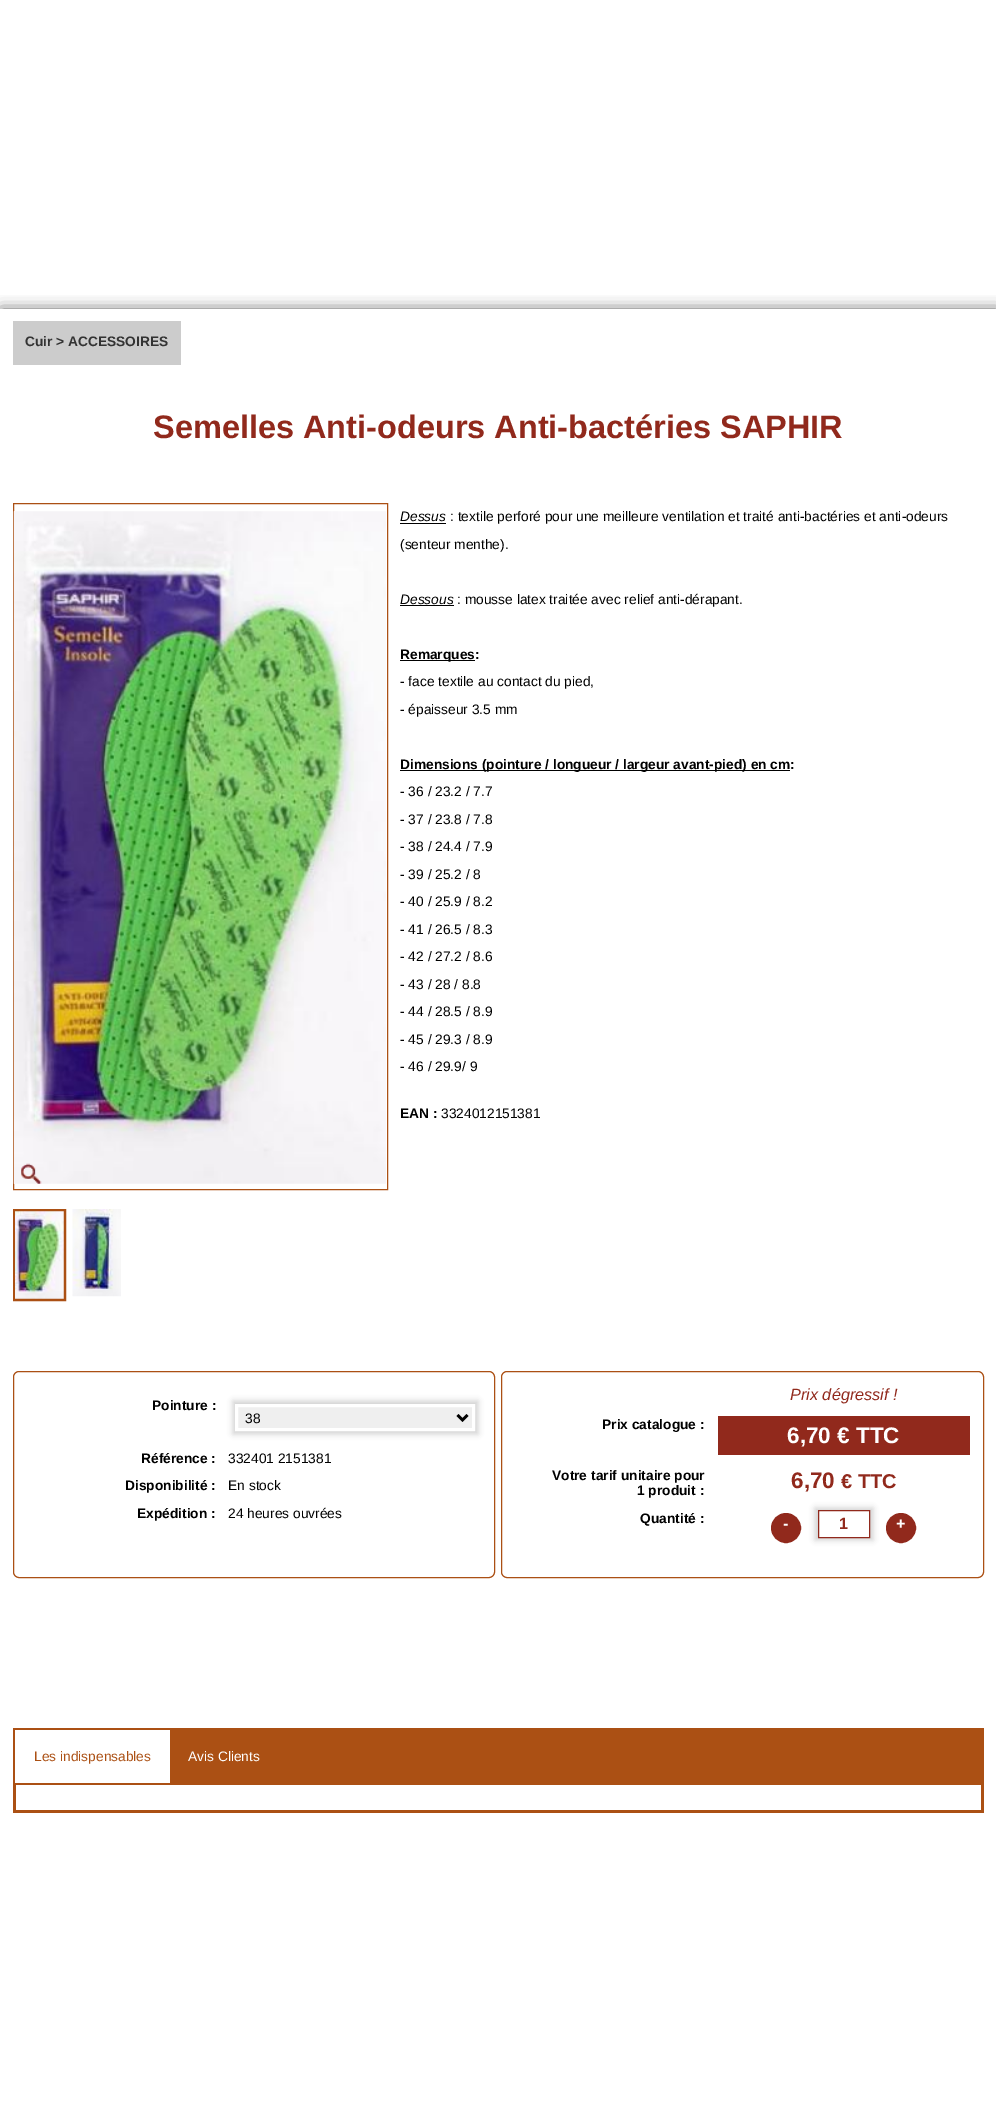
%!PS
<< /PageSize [996 2120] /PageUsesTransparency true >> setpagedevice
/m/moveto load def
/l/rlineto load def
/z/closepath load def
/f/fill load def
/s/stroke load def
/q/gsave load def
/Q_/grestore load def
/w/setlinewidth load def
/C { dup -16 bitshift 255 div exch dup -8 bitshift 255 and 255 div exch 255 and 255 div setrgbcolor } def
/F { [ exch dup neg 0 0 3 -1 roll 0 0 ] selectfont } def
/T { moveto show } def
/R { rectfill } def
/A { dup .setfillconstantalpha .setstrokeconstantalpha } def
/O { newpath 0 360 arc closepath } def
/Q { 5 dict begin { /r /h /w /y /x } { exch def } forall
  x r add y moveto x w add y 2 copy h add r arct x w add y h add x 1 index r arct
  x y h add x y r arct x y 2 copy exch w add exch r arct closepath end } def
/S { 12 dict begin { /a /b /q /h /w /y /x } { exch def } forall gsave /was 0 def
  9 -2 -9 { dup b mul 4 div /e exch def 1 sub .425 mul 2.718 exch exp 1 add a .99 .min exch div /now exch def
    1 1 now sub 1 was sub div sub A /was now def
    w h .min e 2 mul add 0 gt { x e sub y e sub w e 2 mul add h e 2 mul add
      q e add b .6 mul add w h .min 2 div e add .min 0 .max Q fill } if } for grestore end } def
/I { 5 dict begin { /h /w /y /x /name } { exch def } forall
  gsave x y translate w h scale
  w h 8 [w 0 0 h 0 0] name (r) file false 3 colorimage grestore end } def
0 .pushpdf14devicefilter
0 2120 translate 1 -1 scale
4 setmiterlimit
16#FFFFFF C
0 0 996 2120 R
q
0 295 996 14 rectclip
16#555555 C
1 310 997 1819 0 7.5 1 S
Q_
16#CCCCCC C
13 321 168 44 R
/LiberationSans-Bold 13.75 F
16#333333 C
(Cuir > ACCESSOIRES) 25 346 T
/LiberationSans-Bold 32.5 F
16#91291C C
(Semelles Anti-odeurs Anti-bactéries SAPHIR) 153 438 T
16#AB5014 C
13.5 503.5 374 686 rectstroke
(1.rgb) 13 511 373 673 I
(2.rgb) 21 1163 21 21 I
3 w
14.5 1210.5 50 89 rectstroke
(3.rgb) 15 1211 49 88 I
(4.rgb) 72 1209 49 88 I
/LiberationSans-Italic 13.75 F
16#000000 C
(Dessus) 400 521 T
400 523 46 1 R
/LiberationSans-Regular 13.75 F
(: textile perforé pour une meilleure ventilation et traité anti-bactéries et anti-odeurs) 450 521 T
(\(senteur menthe\).) 400 549 T
/LiberationSans-Italic 13.75 F
(Dessous) 400 604 T
400 605 54 1 R
/LiberationSans-Regular 13.75 F
(: mousse latex traitée avec relief anti-dérapant.) 457 604 T
400 660 75 1 R
/LiberationSans-Bold 13.75 F
(Remarques:) 400 659 T
/LiberationSans-Regular 13.75 F
(- face textile au contact du pied,) 400 686 T
(- épaisseur 3.5 mm) 400 714 T
400 770 390 1 R
/LiberationSans-Bold 13.75 F
(Dimensions \(pointure / longueur / largeur avant-pied\) en cm:) 400 769 T
/LiberationSans-Regular 13.75 F
(- 36 / 23.2 / 7.7) 400 796 T
(- 37 / 23.8 / 7.8) 400 824 T
(- 38 / 24.4 / 7.9) 400 851 T
(- 39 / 25.2 / 8) 400 879 T
(- 40 / 25.9 / 8.2) 400 906 T
(- 41 / 26.5 / 8.3) 400 934 T
(- 42 / 27.2 / 8.6) 400 961 T
(- 43 / 28 / 8.8) 400 989 T
(- 44 / 28.5 / 8.9) 400 1016 T
(- 45 / 29.3 / 8.9) 400 1044 T
(- 46 / 29.9/ 9) 400 1071 T
/LiberationSans-Bold 13.75 F
(EAN :) 400 1118 T
/LiberationSans-Regular 13.75 F
(3324012151381) 441 1118 T
16#AB5014 C
1 w
13.5 1371.5 481 206 5.5 Q s
/LiberationSans-Bold 13.75 F
16#000000 C
(Pointure :) 152 1410 T
16#CFCFCF C
233 1401 245 33 0 3 1 S
16#EFEFEF C
236.5 1405.5 m 237 0 l 0 24 l -237 0 l z q f Q_
16#FFFFFF C
3 w
s
16#000000 C
2.5 w
457.5 1415 m 5 5 l 5 -5 l s
/LiberationSans-Regular 13.75 F
(38) 245 1423 T
/LiberationSans-Bold 13.75 F
(Référence :) 141 1463 T
/LiberationSans-Regular 13.75 F
(332401 2151381) 228 1463 T
/LiberationSans-Bold 13.75 F
(Disponibilité :) 125 1490 T
/LiberationSans-Regular 13.75 F
(En stock) 228 1490 T
/LiberationSans-Bold 13.75 F
(Expédition :) 137 1518 T
/LiberationSans-Regular 13.75 F
(24 heures ouvrées) 228 1518 T
16#AB5014 C
1 w
501.5 1371.5 482 206 5.5 Q s
/LiberationSans-Italic 16.25 F
16#91291C C
(Prix dégressif !) 790 1400 T
/LiberationSans-Bold 13.75 F
16#000000 C
(Prix catalogue :) 602 1429 T
16#91291C C
718 1416 252 39 R
/LiberationSans-Bold 22.5 F
16#FFFFFF C
(6,70 € TTC) 787 1443 T
/LiberationSans-Bold 13.75 F
16#000000 C
(Votre tarif unitaire pour) 552 1480 T
(1 produit :) 637 1495 T
/LiberationSans-Bold 22.5 F
16#91291C C
(6,70) 791 1488 T
/LiberationSans-Bold 20 F
(€ TTC) 841 1488 T
/LiberationSans-Bold 13.75 F
16#000000 C
(Quantité :) 640 1523 T
16#91291C C
786 1528 13.5 O q f Q_
3 w
s
/LiberationSans-Bold 16.25 F
16#FFFFFF C
(-) 783 1529 T
16#CFCFCF C
815 1508 58 32 0 3 1 S
16#FFFFFF C
818.5 1510.5 m 51 0 l 0 27 l -51 0 l z q f Q_
16#91291C C
1 w
s
(1) 839 1529 T
901 1528 13.5 O q f Q_
3 w
s
16#FFFFFF C
(+) 896 1529 T
16#AB5014 C
13 1728 971 57 R
16#FFFFFF C
15 1730 155 53 R
/LiberationSans-Regular 13.75 F
16#AB5014 C
(Les indispensables) 34 1761 T
16#FFFFFF C
(Avis Clients) 188 1761 T
16#AB5014 C
981 1785 3 28 R
13 1810 971 3 R
13 1785 3 28 R
.poppdf14devicefilter showpage
